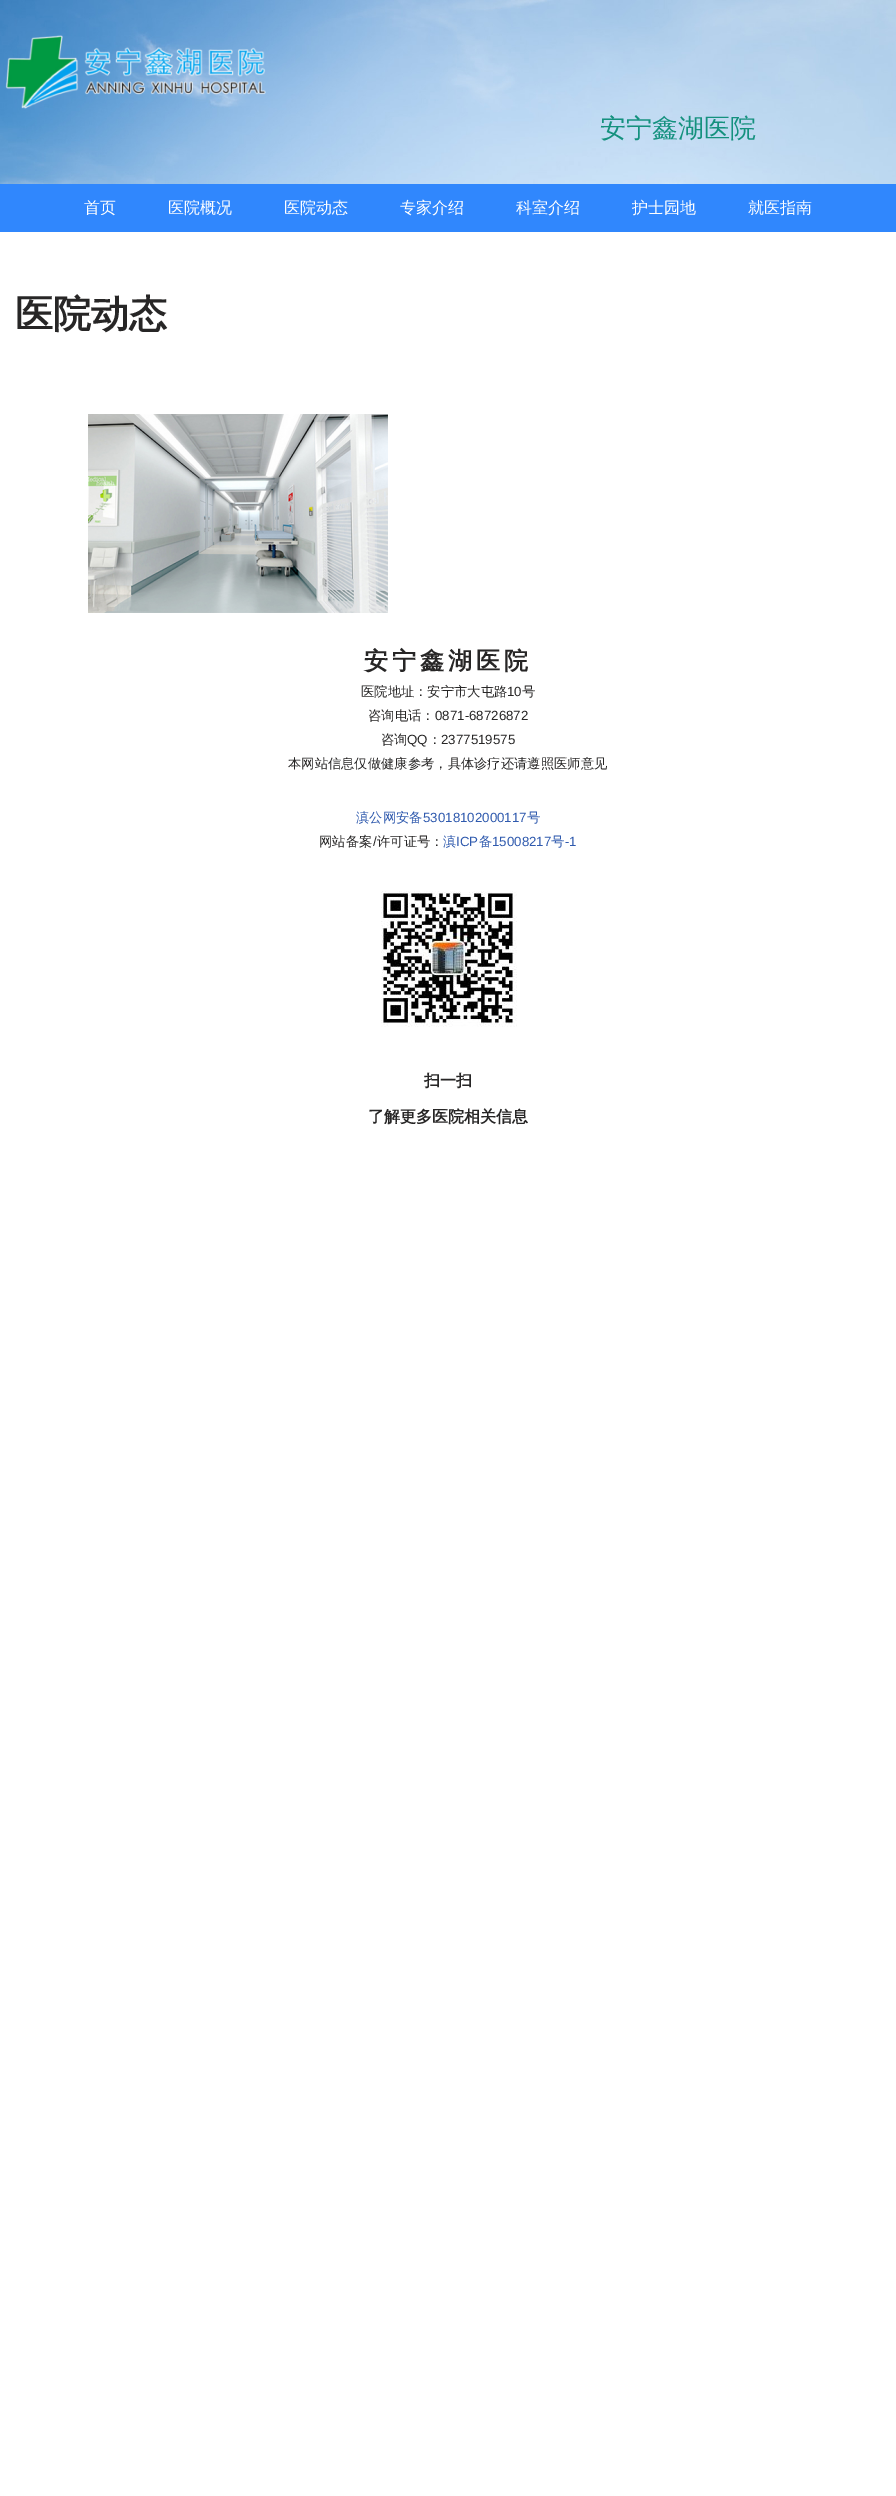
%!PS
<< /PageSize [896 2496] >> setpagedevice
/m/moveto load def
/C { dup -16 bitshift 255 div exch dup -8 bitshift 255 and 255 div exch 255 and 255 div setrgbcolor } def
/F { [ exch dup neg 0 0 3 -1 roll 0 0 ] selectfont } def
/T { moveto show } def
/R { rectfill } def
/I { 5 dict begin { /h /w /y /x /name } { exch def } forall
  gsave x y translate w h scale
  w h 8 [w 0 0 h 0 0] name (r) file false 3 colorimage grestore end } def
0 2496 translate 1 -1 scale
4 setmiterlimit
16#FFFFFF C
0 0 896 2496 R
(1.rgb) 0 0 896 184 I
(2.rgb) 5 35 261 74 I
/WenQuanYiZenHei-Medium 26 F
16#14917E C
(安宁鑫湖医院) 600 137 T
16#3087FD C
0 184 896 48 R
/WenQuanYiZenHei-Medium 16 F
16#FFFFFF C
(首页) 84 213 T
(医院概况) 168 213 T
(医院动态) 284 213 T
(专家介绍) 400 213 T
(科室介绍) 516 213 T
(护士园地) 632 213 T
(就医指南) 748 213 T
/WenQuanYiZenHei-Bold 38 F
16#272626 C
(医院动态) 15 327 T
(3.rgb) 88 414 300 199 I
/WenQuanYiZenHei-Bold 24 F
364 669 m 4 0 (安宁鑫湖医院) ashow
/WenQuanYiZenHei-Medium 13.3 F
(医院地址：安宁市大屯路) 361 696 T
/LiberationSans-Regular 13.3 F
(10) 507 696 T
/WenQuanYiZenHei-Medium 13.3 F
(号) 522 696 T
(咨询电话：) 368 720 T
/LiberationSans-Regular 13.3 F
(0871-68726872) 435 720 T
/WenQuanYiZenHei-Medium 13.3 F
(咨询) 381 744 T
/LiberationSans-Regular 13.3 F
(QQ) 407 744 T
/WenQuanYiZenHei-Medium 13.3 F
(：) 428 744 T
/LiberationSans-Regular 13.3 F
(2377519575) 441 744 T
/WenQuanYiZenHei-Medium 13.3 F
(本网站信息仅做健康参考，具体诊疗还请遵照医师意见) 288 768 T
16#2F5AAE C
(滇公网安备) 356 822 T
/LiberationSans-Regular 13.3 F
(53018102000117) 423 822 T
/WenQuanYiZenHei-Medium 13.3 F
(号) 527 822 T
16#272626 C
(网站备案) 319 846 T
/LiberationSans-Regular 13.3 F
(/) 373 846 T
/WenQuanYiZenHei-Medium 13.3 F
(许可证号：) 377 846 T
16#2F5AAE C
(滇) 443 846 T
/LiberationSans-Regular 13.3 F
(ICP) 456 846 T
/WenQuanYiZenHei-Medium 13.3 F
(备) 479 846 T
/LiberationSans-Regular 13.3 F
(15008217) 492 846 T
/WenQuanYiZenHei-Medium 13.3 F
(号) 551 846 T
/LiberationSans-Regular 13.3 F
(-1) 565 846 T
(4.rgb) 381 891 136 136 I
/WenQuanYiZenHei-Bold 16 F
16#272626 C
(扫一扫) 424 1086 T
(了解更多医院相关信息) 368 1122 T
showpage
